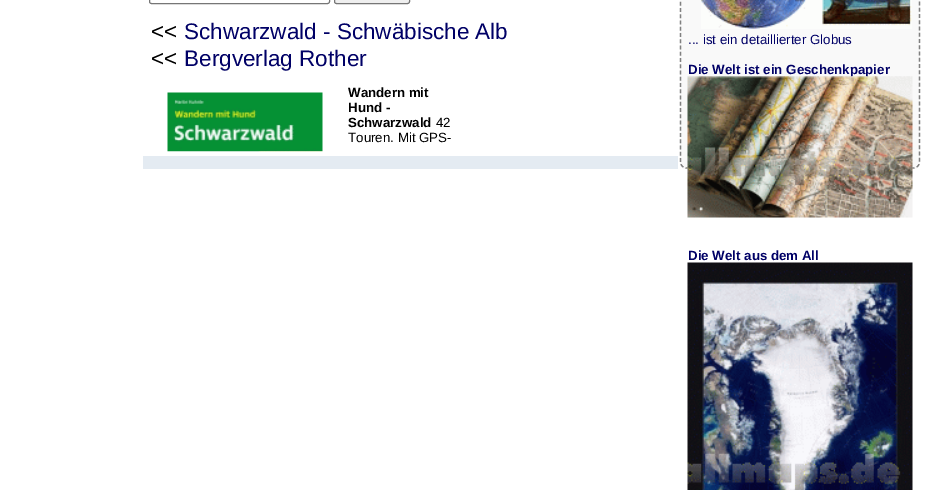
%!PS
<< /PageSize [929 490] >> setpagedevice
/m/moveto load def
/l/rlineto load def
/c/rcurveto load def
/z/closepath load def
/f/fill load def
/s/stroke load def
/q/gsave load def
/Q_/grestore load def
/w/setlinewidth load def
/C { dup -16 bitshift 255 div exch dup -8 bitshift 255 and 255 div exch 255 and 255 div setrgbcolor } def
/F { [ exch dup neg 0 0 3 -1 roll 0 0 ] selectfont } def
/T { moveto show } def
/R { rectfill } def
/Q { 5 dict begin { /r /h /w /y /x } { exch def } forall
  x r add y moveto x w add y 2 copy h add r arct x w add y h add x 1 index r arct
  x y h add x y r arct x y 2 copy exch w add exch r arct closepath end } def
/I { 5 dict begin { /h /w /y /x /name } { exch def } forall
  gsave x y translate w h scale
  w h 8 [w 0 0 h 0 0] name (r) file false 3 colorimage grestore end } def
0 490 translate 1 -1 scale
4 setmiterlimit
16#FFFFFF C
0 0 929 490 R
16#767676 C
149.5 -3.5 180 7 2 Q s
16#EFEFEF C
334.5 -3.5 75 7 2 Q q f Q_
16#767676 C
s
/LiberationSans-Regular 22.5 F
16#000000 C
(<<) 151 39 T
16#000066 C
(Schwarzwald - Schwäbische Alb) 184 39 T
16#000000 C
(<<) 151 66 T
16#000066 C
(Bergverlag Rother) 184 66 T
(1.rgb) 167 92 156 60 I
/LiberationSans-Bold 13.3 F
16#000000 C
(Wandern mit) 348 97 T
(Hund -) 348 112 T
(Schwarzwald) 348 127 T
/LiberationSans-Regular 13.3 F
(42) 436 127 T
(Touren. Mit GPS-) 348 142 T
16#F9F9F9 C
680 -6 m 234 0 l 3.5 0 6 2.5 6 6 c 0 163 l 0 3.5 -2.5 6 -6 6 c -228 0 l -3.5 0 -6 -2.5 -6 -6 c z f
16#808080 C
1.2 w
[3.75 2.5] 0 setdash
680.5 -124.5 m 233 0 l 3 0 6 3 6 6 c 0 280.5 l 0 3.5 -3 6 -6 6 c -227 0 l -3 0 -6 -2.5 -6 -6 c z s
(2.rgb) 701 0 211 29 I
16#000066 C
(... ist ein detaillierter Globus) 688 44 T
/LiberationSans-Bold 13.3 F
(Die Welt ist ein Geschenkpapier) 688 74 T
(3.rgb) 687 76 226 142 I
(Die Welt aus dem All) 688 260 T
(4.rgb) 687 262 226 228 I
16#E4EBF2 C
143 156 535 13 R
showpage
